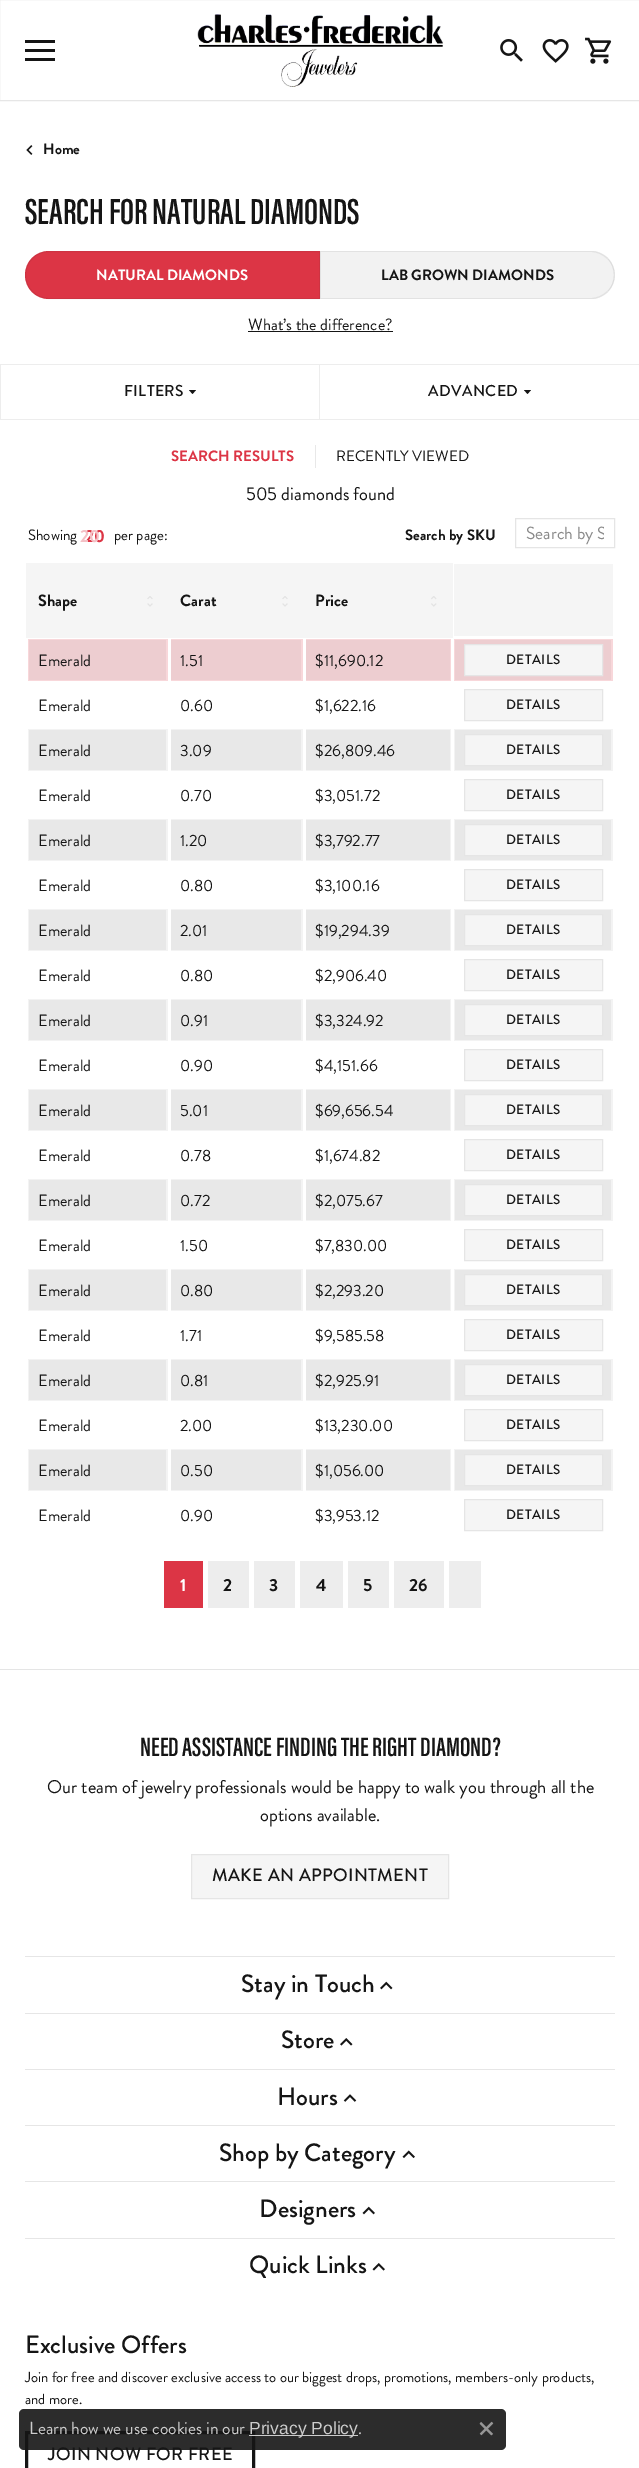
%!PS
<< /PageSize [639 2468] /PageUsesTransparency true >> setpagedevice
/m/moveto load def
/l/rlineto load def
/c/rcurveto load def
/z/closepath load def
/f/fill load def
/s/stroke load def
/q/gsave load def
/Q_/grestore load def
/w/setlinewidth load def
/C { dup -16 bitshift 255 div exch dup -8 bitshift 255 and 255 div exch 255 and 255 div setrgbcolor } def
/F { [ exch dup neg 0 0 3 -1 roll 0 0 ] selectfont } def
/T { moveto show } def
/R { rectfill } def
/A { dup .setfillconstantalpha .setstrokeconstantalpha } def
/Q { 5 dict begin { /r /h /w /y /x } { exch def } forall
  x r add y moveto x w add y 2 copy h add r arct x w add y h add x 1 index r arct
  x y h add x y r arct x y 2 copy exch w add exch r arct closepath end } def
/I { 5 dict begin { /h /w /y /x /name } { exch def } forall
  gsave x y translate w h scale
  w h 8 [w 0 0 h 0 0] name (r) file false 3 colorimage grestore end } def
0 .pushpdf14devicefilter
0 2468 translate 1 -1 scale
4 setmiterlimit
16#FFFFFF C
0 0 639 2468 R
16#E6E6E6 C
-.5 -.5 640 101 rectstroke
16#151515 C
25 40 30 3 R
25 49 30 3 R
25 58 30 3 R
(1.rgb) 197 14 247 73 I
(2.rgb) 500 39 23 23 I
(3.rgb) 542 39 27 24 I
(4.rgb) 585 37 27 27 I
(5.rgb) 26 145 7 10 I
/BrandonGrotesque-Bold 15 F
(Home) 43 154 T
/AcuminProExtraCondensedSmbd-SemiBold 37.25 F
(SEARCH FOR NATURAL DIAMONDS) 25 224 T
16#DC3545 C
49 251 m 271 0 l 0 48 l -271 0 l -13.5 0 -24 -10.5 -24 -24 c 0 -13.5 10.5 -24 24 -24 c z f
0.07 A
16#151515 C
49 251.5 m 270.5 0 l 0 47 l -270.5 0 l -13 0 -23.5 -10.5 -23.5 -23.5 c 0 -13 10.5 -23.5 23.5 -23.5 c z s
/BrandonGrotesque-Bold 15 F
1 A
16#FFFFFF C
(NATURAL DIAMONDS) 96 280 T
16#F2F2F2 C
320 251 m 271 0 l 13.5 0 24 10.5 24 24 c 0 13.5 -10.5 24 -24 24 c -271 0 l z f
0.07 A
16#151515 C
321 252 m -1 -1 l 274 0 l 6 1 10 4 14 7 c -1 1 l -4 -4 -10 -7 -16 -7 c z f
0.1 A
608 258.5 m 9 9 9 24 0 33 c -.5 -.5 l 8.5 -9 8.5 -23 0 -32 c z f
0.07 A
594 299 m -274 0 l 1 -1 l 270 0 l 6 0 12 -3 16 -7 c 1 1 l -4 3 -8 6 -14 7 c z f
320 299 m 1 -1 l 0 -46 l -1 -1 l z f
1 A
(LAB GROWN DIAMONDS) 381 280 T
/BrandonGrotesque-Regular 16.25 F
(What’s the difference?) 248 330 T
248 331 145 1 R
16#EDEDED C
0 364 639 1 R
0 419 639 1 R
319 365 1 54 R
0 365 1 54 R
/BrandonGrotesque-Medium 15.75 F
16#151515 C
124 396 m .4 0 (FILTERS) ashow
189 390 m 7 0 l -3.5 4 l z f
428 396 m .4 0 (ADVANCED) ashow
524 390 m 7 0 l -3.5 4 l z f
/BrandonGrotesque-Bold 15 F
16#DC3545 C
(SEARCH RESULTS) 171 461 T
16#E8E8E8 C
315 445 1 23 R
/BrandonGrotesque-Regular 15 F
16#151515 C
(RECENTLY VIEWED) 336 461 T
/BrandonGrotesque-Regular 18.4 F
(505 diamonds found) 246 500 T
/BrandonGrotesque-Regular 15 F
(Showing) 28 540 T
/BrandonGrotesque-Bold 17.5 F
16#DC3545 C
(20) 85 542 T
16#F4C0C5 C
(20) 80 542 T
/BrandonGrotesque-Regular 15 F
16#151515 C
(per page:) 114 540 T
/BrandonGrotesque-Bold 15 F
(Search by SKU) 405 540 T
16#E5E5E5 C
515.5 518.5 99 29 rectstroke
q
526 520 78 25 rectclip
/BrandonGrotesque-Regular 17.5 F
16#8A8A8A C
(Search by S) 526 539 T
Q_
16#F8D7DA C
28 639 585 42 R
16#FFFFFF C
168 636 3 48 R
303 636 3 48 R
451 636 3 48 R
16#F5F5F5 C
26 563 427 75 R
/BrandonGrotesque-Bold 16.25 F
16#151515 C
(Shape) 38 606 T
(6.rgb) 147 596 6 11 I
(Carat) 180 606 T
(6.rgb) 282 596 6 11 I
(Price) 315 606 T
(7.rgb) 431 596 6 11 I
16#F5F5F5 C
454 564 159 72 R
16#EDCDD0 C
29 640 137 40 R
/BrandonGrotesque-Regular 16.25 F
16#151515 C
(Emerald) 38 666 T
16#EDCDD0 C
171 640 130 40 R
16#151515 C
(1.51) 180 666 T
16#EDCDD0 C
306 640 144 40 R
16#151515 C
($11,690.12) 315 666 T
16#EDCDD0 C
455 640 156 40 R
16#F5F5F5 C
464.5 644.5 m 138 0 l 0 31 l -138 0 l z q f Q_
16#E5E5E5 C
s
/BrandonGrotesque-Medium 13.5 F
16#151515 C
506 664 m .4 0 (DETAILS) ashow
/BrandonGrotesque-Regular 16.25 F
(Emerald) 38 711 T
(0.60) 180 711 T
($1,622.16) 315 711 T
16#F5F5F5 C
464.5 689.5 m 138 0 l 0 31 l -138 0 l z q f Q_
16#E5E5E5 C
s
/BrandonGrotesque-Medium 13.5 F
16#151515 C
506 709 m .4 0 (DETAILS) ashow
16#F3F3F3 C
28 729 585 42 R
16#E8E8E8 C
29 730 137 40 R
/BrandonGrotesque-Regular 16.25 F
16#151515 C
(Emerald) 38 756 T
16#E8E8E8 C
171 730 130 40 R
16#FFFFFF C
168 726 3 48 R
16#151515 C
(3.09) 180 756 T
16#E8E8E8 C
306 730 144 40 R
16#FFFFFF C
303 726 3 48 R
16#151515 C
($26,809.46) 315 756 T
16#E8E8E8 C
455 730 156 40 R
16#FFFFFF C
451 726 3 48 R
16#F5F5F5 C
464.5 734.5 m 138 0 l 0 31 l -138 0 l z q f Q_
16#E5E5E5 C
s
/BrandonGrotesque-Medium 13.5 F
16#151515 C
506 754 m .4 0 (DETAILS) ashow
/BrandonGrotesque-Regular 16.25 F
(Emerald) 38 801 T
(0.70) 180 801 T
($3,051.72) 315 801 T
16#F5F5F5 C
464.5 779.5 m 138 0 l 0 31 l -138 0 l z q f Q_
16#E5E5E5 C
s
/BrandonGrotesque-Medium 13.5 F
16#151515 C
506 799 m .4 0 (DETAILS) ashow
16#F3F3F3 C
28 819 585 42 R
16#E8E8E8 C
29 820 137 40 R
/BrandonGrotesque-Regular 16.25 F
16#151515 C
(Emerald) 38 846 T
16#E8E8E8 C
171 820 130 40 R
16#FFFFFF C
168 816 3 48 R
16#151515 C
(1.20) 180 846 T
16#E8E8E8 C
306 820 144 40 R
16#FFFFFF C
303 816 3 48 R
16#151515 C
($3,792.77) 315 846 T
16#E8E8E8 C
455 820 156 40 R
16#FFFFFF C
451 816 3 48 R
16#F5F5F5 C
464.5 824.5 m 138 0 l 0 31 l -138 0 l z q f Q_
16#E5E5E5 C
s
/BrandonGrotesque-Medium 13.5 F
16#151515 C
506 844 m .4 0 (DETAILS) ashow
/BrandonGrotesque-Regular 16.25 F
(Emerald) 38 891 T
(0.80) 180 891 T
($3,100.16) 315 891 T
16#F5F5F5 C
464.5 869.5 m 138 0 l 0 31 l -138 0 l z q f Q_
16#E5E5E5 C
s
/BrandonGrotesque-Medium 13.5 F
16#151515 C
506 889 m .4 0 (DETAILS) ashow
16#F3F3F3 C
28 909 585 42 R
16#E8E8E8 C
29 910 137 40 R
/BrandonGrotesque-Regular 16.25 F
16#151515 C
(Emerald) 38 936 T
16#E8E8E8 C
171 910 130 40 R
16#FFFFFF C
168 906 3 48 R
16#151515 C
(2.01) 180 936 T
16#E8E8E8 C
306 910 144 40 R
16#FFFFFF C
303 906 3 48 R
16#151515 C
($19,294.39) 315 936 T
16#E8E8E8 C
455 910 156 40 R
16#FFFFFF C
451 906 3 48 R
16#F5F5F5 C
464.5 914.5 m 138 0 l 0 31 l -138 0 l z q f Q_
16#E5E5E5 C
s
/BrandonGrotesque-Medium 13.5 F
16#151515 C
506 934 m .4 0 (DETAILS) ashow
/BrandonGrotesque-Regular 16.25 F
(Emerald) 38 981 T
(0.80) 180 981 T
($2,906.40) 315 981 T
16#F5F5F5 C
464.5 959.5 m 138 0 l 0 31 l -138 0 l z q f Q_
16#E5E5E5 C
s
/BrandonGrotesque-Medium 13.5 F
16#151515 C
506 979 m .4 0 (DETAILS) ashow
16#F3F3F3 C
28 999 585 42 R
16#E8E8E8 C
29 1000 137 40 R
/BrandonGrotesque-Regular 16.25 F
16#151515 C
(Emerald) 38 1026 T
16#E8E8E8 C
171 1000 130 40 R
16#FFFFFF C
168 996 3 48 R
16#151515 C
(0.91) 180 1026 T
16#E8E8E8 C
306 1000 144 40 R
16#FFFFFF C
303 996 3 48 R
16#151515 C
($3,324.92) 315 1026 T
16#E8E8E8 C
455 1000 156 40 R
16#FFFFFF C
451 996 3 48 R
16#F5F5F5 C
464.5 1004.5 m 138 0 l 0 31 l -138 0 l z q f Q_
16#E5E5E5 C
s
/BrandonGrotesque-Medium 13.5 F
16#151515 C
506 1024 m .4 0 (DETAILS) ashow
/BrandonGrotesque-Regular 16.25 F
(Emerald) 38 1071 T
(0.90) 180 1071 T
($4,151.66) 315 1071 T
16#F5F5F5 C
464.5 1049.5 m 138 0 l 0 31 l -138 0 l z q f Q_
16#E5E5E5 C
s
/BrandonGrotesque-Medium 13.5 F
16#151515 C
506 1069 m .4 0 (DETAILS) ashow
16#F3F3F3 C
28 1089 585 42 R
16#E8E8E8 C
29 1090 137 40 R
/BrandonGrotesque-Regular 16.25 F
16#151515 C
(Emerald) 38 1116 T
16#E8E8E8 C
171 1090 130 40 R
16#FFFFFF C
168 1086 3 48 R
16#151515 C
(5.01) 180 1116 T
16#E8E8E8 C
306 1090 144 40 R
16#FFFFFF C
303 1086 3 48 R
16#151515 C
($69,656.54) 315 1116 T
16#E8E8E8 C
455 1090 156 40 R
16#FFFFFF C
451 1086 3 48 R
16#F5F5F5 C
464.5 1094.5 m 138 0 l 0 31 l -138 0 l z q f Q_
16#E5E5E5 C
s
/BrandonGrotesque-Medium 13.5 F
16#151515 C
506 1114 m .4 0 (DETAILS) ashow
/BrandonGrotesque-Regular 16.25 F
(Emerald) 38 1161 T
(0.78) 180 1161 T
($1,674.82) 315 1161 T
16#F5F5F5 C
464.5 1139.5 m 138 0 l 0 31 l -138 0 l z q f Q_
16#E5E5E5 C
s
/BrandonGrotesque-Medium 13.5 F
16#151515 C
506 1159 m .4 0 (DETAILS) ashow
16#F3F3F3 C
28 1179 585 42 R
16#E8E8E8 C
29 1180 137 40 R
/BrandonGrotesque-Regular 16.25 F
16#151515 C
(Emerald) 38 1206 T
16#E8E8E8 C
171 1180 130 40 R
16#FFFFFF C
168 1176 3 48 R
16#151515 C
(0.72) 180 1206 T
16#E8E8E8 C
306 1180 144 40 R
16#FFFFFF C
303 1176 3 48 R
16#151515 C
($2,075.67) 315 1206 T
16#E8E8E8 C
455 1180 156 40 R
16#FFFFFF C
451 1176 3 48 R
16#F5F5F5 C
464.5 1184.5 m 138 0 l 0 31 l -138 0 l z q f Q_
16#E5E5E5 C
s
/BrandonGrotesque-Medium 13.5 F
16#151515 C
506 1204 m .4 0 (DETAILS) ashow
/BrandonGrotesque-Regular 16.25 F
(Emerald) 38 1251 T
(1.50) 180 1251 T
($7,830.00) 315 1251 T
16#F5F5F5 C
464.5 1229.5 m 138 0 l 0 31 l -138 0 l z q f Q_
16#E5E5E5 C
s
/BrandonGrotesque-Medium 13.5 F
16#151515 C
506 1249 m .4 0 (DETAILS) ashow
16#F3F3F3 C
28 1269 585 42 R
16#E8E8E8 C
29 1270 137 40 R
/BrandonGrotesque-Regular 16.25 F
16#151515 C
(Emerald) 38 1296 T
16#E8E8E8 C
171 1270 130 40 R
16#FFFFFF C
168 1266 3 48 R
16#151515 C
(0.80) 180 1296 T
16#E8E8E8 C
306 1270 144 40 R
16#FFFFFF C
303 1266 3 48 R
16#151515 C
($2,293.20) 315 1296 T
16#E8E8E8 C
455 1270 156 40 R
16#FFFFFF C
451 1266 3 48 R
16#F5F5F5 C
464.5 1274.5 m 138 0 l 0 31 l -138 0 l z q f Q_
16#E5E5E5 C
s
/BrandonGrotesque-Medium 13.5 F
16#151515 C
506 1294 m .4 0 (DETAILS) ashow
/BrandonGrotesque-Regular 16.25 F
(Emerald) 38 1341 T
(1.71) 180 1341 T
($9,585.58) 315 1341 T
16#F5F5F5 C
464.5 1319.5 m 138 0 l 0 31 l -138 0 l z q f Q_
16#E5E5E5 C
s
/BrandonGrotesque-Medium 13.5 F
16#151515 C
506 1339 m .4 0 (DETAILS) ashow
16#F3F3F3 C
28 1359 585 42 R
16#E8E8E8 C
29 1360 137 40 R
/BrandonGrotesque-Regular 16.25 F
16#151515 C
(Emerald) 38 1386 T
16#E8E8E8 C
171 1360 130 40 R
16#FFFFFF C
168 1356 3 48 R
16#151515 C
(0.81) 180 1386 T
16#E8E8E8 C
306 1360 144 40 R
16#FFFFFF C
303 1356 3 48 R
16#151515 C
($2,925.91) 315 1386 T
16#E8E8E8 C
455 1360 156 40 R
16#FFFFFF C
451 1356 3 48 R
16#F5F5F5 C
464.5 1364.5 m 138 0 l 0 31 l -138 0 l z q f Q_
16#E5E5E5 C
s
/BrandonGrotesque-Medium 13.5 F
16#151515 C
506 1384 m .4 0 (DETAILS) ashow
/BrandonGrotesque-Regular 16.25 F
(Emerald) 38 1431 T
(2.00) 180 1431 T
($13,230.00) 315 1431 T
16#F5F5F5 C
464.5 1409.5 m 138 0 l 0 31 l -138 0 l z q f Q_
16#E5E5E5 C
s
/BrandonGrotesque-Medium 13.5 F
16#151515 C
506 1429 m .4 0 (DETAILS) ashow
16#F3F3F3 C
28 1449 585 42 R
16#E8E8E8 C
29 1450 137 40 R
/BrandonGrotesque-Regular 16.25 F
16#151515 C
(Emerald) 38 1476 T
16#E8E8E8 C
171 1450 130 40 R
16#FFFFFF C
168 1446 3 48 R
16#151515 C
(0.50) 180 1476 T
16#E8E8E8 C
306 1450 144 40 R
16#FFFFFF C
303 1446 3 48 R
16#151515 C
($1,056.00) 315 1476 T
16#E8E8E8 C
455 1450 156 40 R
16#FFFFFF C
451 1446 3 48 R
16#F5F5F5 C
464.5 1454.5 m 138 0 l 0 31 l -138 0 l z q f Q_
16#E5E5E5 C
s
/BrandonGrotesque-Medium 13.5 F
16#151515 C
506 1474 m .4 0 (DETAILS) ashow
/BrandonGrotesque-Regular 16.25 F
(Emerald) 38 1521 T
(0.90) 180 1521 T
($3,953.12) 315 1521 T
16#F5F5F5 C
464.5 1499.5 m 138 0 l 0 31 l -138 0 l z q f Q_
16#E5E5E5 C
s
/BrandonGrotesque-Medium 13.5 F
16#151515 C
506 1519 m .4 0 (DETAILS) ashow
16#DC3545 C
164 1561 39 47 R
/BrandonGrotesque-Bold 17.5 F
16#FFFFFF C
(1) 180 1591 T
16#EDEDED C
208 1561 41 47 R
16#151515 C
(2) 223 1591 T
16#EDEDED C
254 1561 41 47 R
16#151515 C
(3) 269 1591 T
16#EDEDED C
300 1561 43 47 R
16#151515 C
(4) 316 1591 T
16#EDEDED C
348 1561 41 47 R
16#151515 C
(5) 363 1591 T
16#EDEDED C
394 1561 50 47 R
16#151515 C
(26) 409 1591 T
16#EDEDED C
449 1561 32 47 R
16#E5E5E5 C
0 1669 639 1 R
/AcuminProExtraCondensedSmbd-SemiBold 27.4 F
16#151515 C
(NEED ASSISTANCE FINDING THE RIGHT DIAMOND?) 140 1756 T
/BrandonGrotesque-Regular 18.4 F
(Our team of jewelry professionals would be happy to walk you through all the) 47 1793 T
(options available.) 260 1821 T
16#F5F5F5 C
191.5 1854.5 m 257 0 l 0 44 l -257 0 l z q f Q_
16#E5E5E5 C
s
/BrandonGrotesque-Medium 18 F
16#151515 C
212 1881 m .4 0 (MAKE AN APPOINTMENT) ashow
16#E6E6E6 C
25 1956 590 1 R
/BrandonGrotesque-Medium 25 F
16#151515 C
(Stay in Touch) 241 1992 T
(8.rgb) 380 1981 13 9 I
16#E6E6E6 C
25 2013 590 1 R
16#151515 C
(Store) 281 2048 T
(9.rgb) 340 2038 13 8 I
16#E6E6E6 C
25 2069 590 1 R
16#151515 C
(Hours) 277 2105 T
(10.rgb) 343 2094 14 8 I
16#E6E6E6 C
25 2125 590 1 R
16#151515 C
(Shop by Category) 219 2161 T
(11.rgb) 402 2150 13 8 I
16#E6E6E6 C
25 2181 590 1 R
16#151515 C
(Designers) 259 2217 T
(12.rgb) 362 2206 13 9 I
16#E6E6E6 C
25 2238 590 1 R
16#151515 C
(Quick Links) 249 2273 T
(13.rgb) 372 2263 13 8 I
(Exclusive Offers) 25 2353 T
/BrandonGrotesque-Regular 14.65 F
(Join for free and discover exclusive access to our biggest drops, promotions, members-only products,) 25 2382 T
(and more.) 25 2404 T
3 w
26.5 2432.5 227 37 rectstroke
/BrandonGrotesque-Medium 18 F
48 2460 m .4 0 (JOIN NOW FOR FREE) ashow
0.9 A
19 2409 487 41 5 Q f
/BrandonGrotesque-Regular 17.5 F
1 A
16#CCCCCC C
(Learn how we use cookies in our) 29 2434 T
249 2435 109 1 R
/LiberationSans-Regular 17.5 F
(Privacy Policy) 249 2434 T
/BrandonGrotesque-Regular 17.5 F
(.) 358 2434 T
(14.rgb) 479 2421 15 15 I
.poppdf14devicefilter showpage
